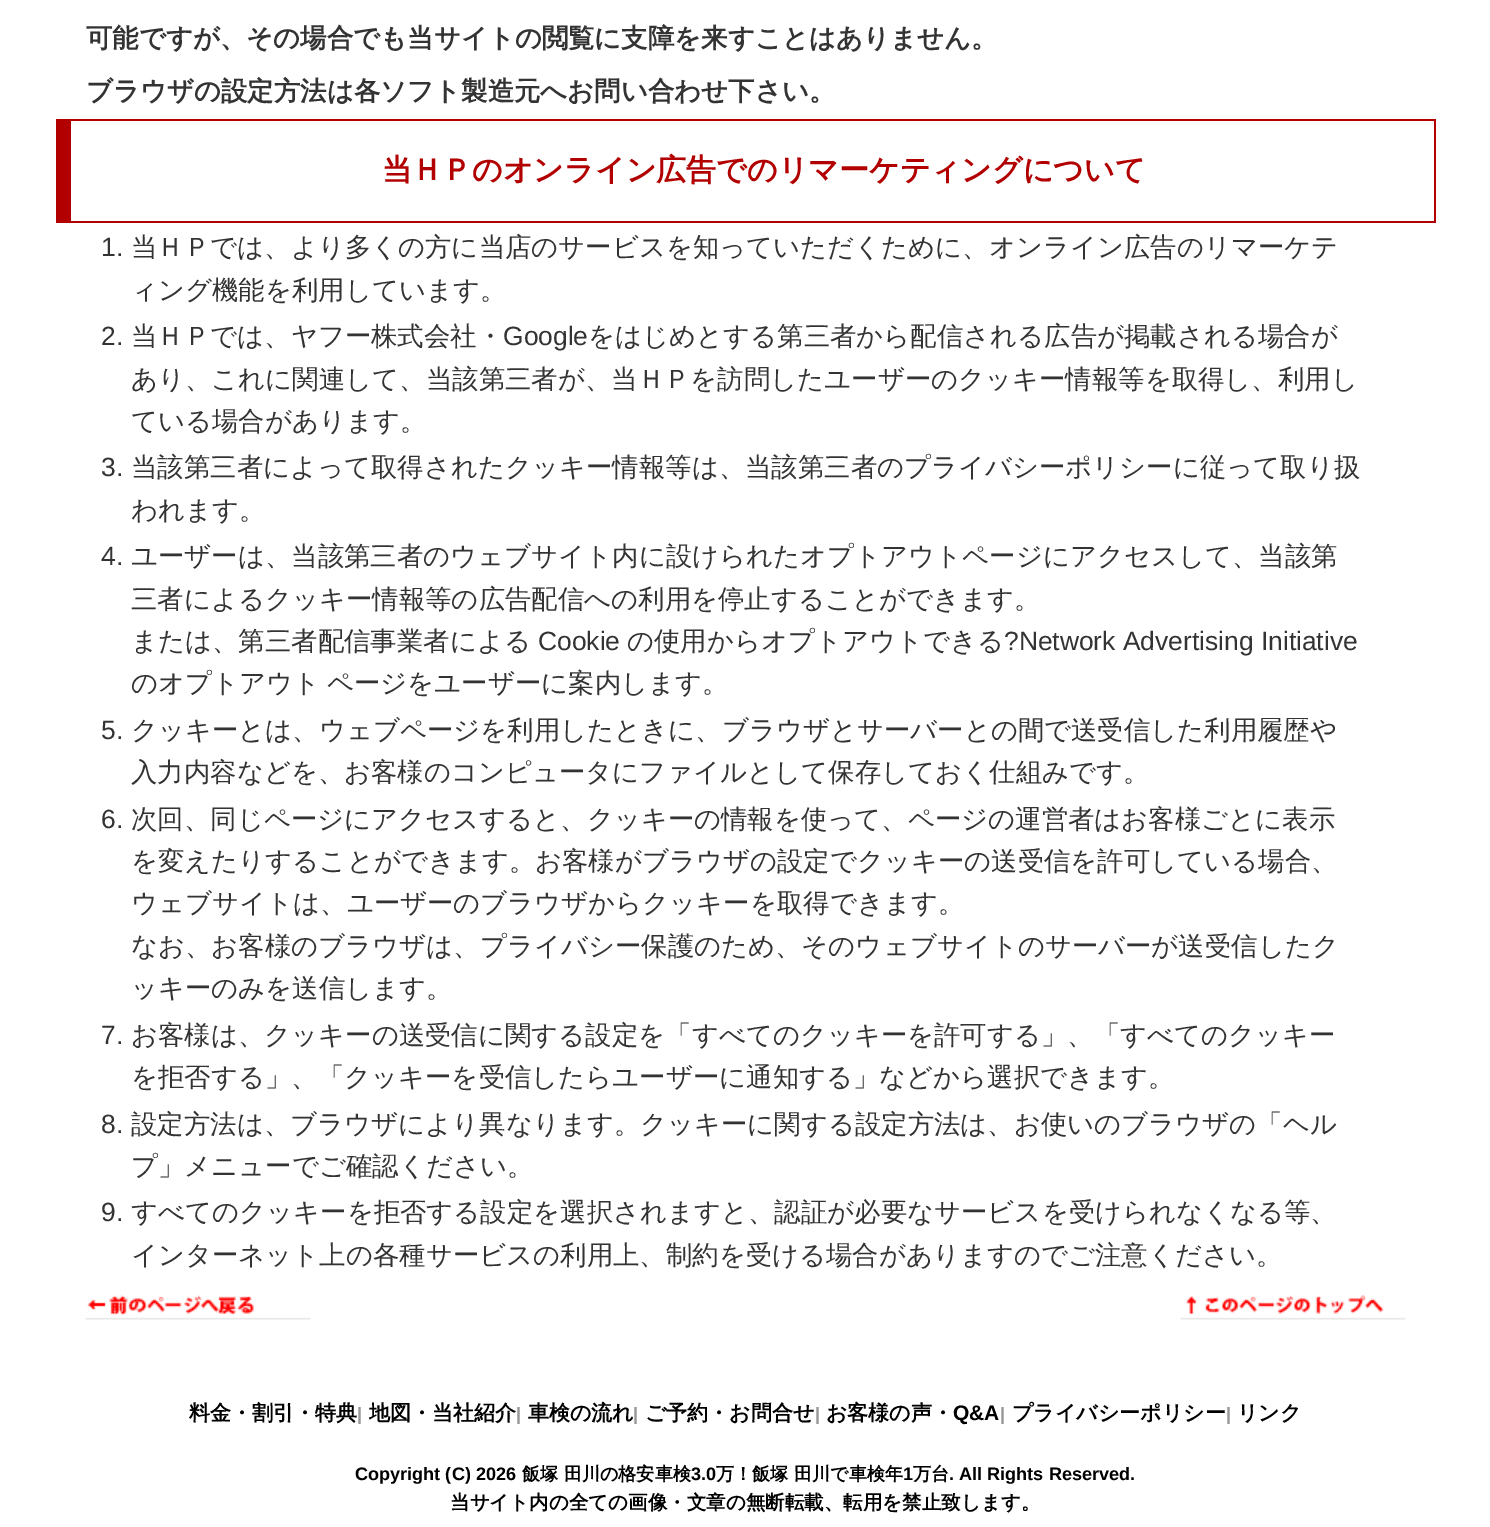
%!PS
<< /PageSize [1490 1527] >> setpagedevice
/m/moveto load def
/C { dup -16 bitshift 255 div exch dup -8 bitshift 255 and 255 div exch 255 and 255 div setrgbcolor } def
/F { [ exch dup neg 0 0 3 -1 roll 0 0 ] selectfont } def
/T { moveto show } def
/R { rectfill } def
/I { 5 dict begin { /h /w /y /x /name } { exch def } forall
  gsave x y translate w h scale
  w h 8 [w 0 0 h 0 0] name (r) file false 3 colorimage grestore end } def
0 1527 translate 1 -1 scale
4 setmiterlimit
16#FFFFFF C
0 0 1490 1527 R
/WenQuanYiZenHei-Bold 26.4 F
16#333333 C
(可能ですが、その場合でも当サイトの閲覧に支障を来すことはありません。) 86 47 T
(ブラウザの設定方法は各ソフト製造元へお問い合わせ下さい。) 86 100 T
16#B20000 C
71 119 1365 2 R
1434 119 2 103 R
56 221 1380 2 R
56 119 15 102 R
/WenQuanYiZenHei-Bold 30 F
(当ＨＰのオンライン広告でのリマーケティングについて) 382 180 T
/LiberationSans-Regular 26.4 F
16#333333 C
(1.) 101 256 T
/WenQuanYiZenHei-Medium 26.4 F
(当ＨＰでは、より多くの方に当店のサービスを知っていただくために、オンライン広告のリマーケテ) 131 256 T
(ィング機能を利用しています。) 131 299 T
/LiberationSans-Regular 26.4 F
(2.) 101 345 T
/WenQuanYiZenHei-Medium 26.4 F
(当ＨＰでは、ヤフー株式会社・) 131 345 T
/LiberationSans-Regular 26.4 F
(Google) 503 345 T
/WenQuanYiZenHei-Medium 26.4 F
(をはじめとする第三者から配信される広告が掲載される場合が) 588 345 T
(あり、これに関連して、当該第三者が、当ＨＰを訪問したユーザーのクッキー情報等を取得し、利用し) 131 388 T
(ている場合があります。) 131 430 T
/LiberationSans-Regular 26.4 F
(3.) 101 476 T
/WenQuanYiZenHei-Medium 26.4 F
(当該第三者によって取得されたクッキー情報等は、当該第三者のプライバシーポリシーに従って取り扱) 131 476 T
(われます。) 131 519 T
/LiberationSans-Regular 26.4 F
(4.) 101 565 T
/WenQuanYiZenHei-Medium 26.4 F
(ユーザーは、当該第三者のウェブサイト内に設けられたオプトアウトページにアクセスして、当該第) 131 565 T
(三者によるクッキー情報等の広告配信への利用を停止することができます。) 131 608 T
(または、第三者配信事業者による) 131 650 T
/LiberationSans-Regular 26.4 F
(Cookie) 538 650 T
/WenQuanYiZenHei-Medium 26.4 F
(の使用からオプトアウトできる) 627 650 T
/LiberationSans-Regular 26.4 F
(?Network Advertising Initiative) 1004 650 T
/WenQuanYiZenHei-Medium 26.4 F
131 692 m -1 0 32 (のオプトアウト ページをユーザーに案内します。) widthshow
/LiberationSans-Regular 26.4 F
(5.) 101 739 T
/WenQuanYiZenHei-Medium 26.4 F
(クッキーとは、ウェブページを利用したときに、ブラウザとサーバーとの間で送受信した利用履歴や) 131 739 T
(入力内容などを、お客様のコンピュータにファイルとして保存しておく仕組みです。) 131 781 T
/LiberationSans-Regular 26.4 F
(6.) 101 828 T
/WenQuanYiZenHei-Medium 26.4 F
(次回、同じページにアクセスすると、クッキーの情報を使って、ページの運営者はお客様ごとに表示) 131 828 T
(を変えたりすることができます。お客様がブラウザの設定でクッキーの送受信を許可している場合、) 131 870 T
(ウェブサイトは、ユーザーのブラウザからクッキーを取得できます。) 131 912 T
(なお、お客様のブラウザは、プライバシー保護のため、そのウェブサイトのサーバーが送受信したク) 131 955 T
(ッキーのみを送信します。) 131 997 T
/LiberationSans-Regular 26.4 F
(7.) 101 1044 T
/WenQuanYiZenHei-Medium 26.4 F
(お客様は、クッキーの送受信に関する設定を「すべてのクッキーを許可する」、「すべてのクッキー) 131 1044 T
(を拒否する」、「クッキーを受信したらユーザーに通知する」などから選択できます。) 131 1086 T
/LiberationSans-Regular 26.4 F
(8.) 101 1133 T
/WenQuanYiZenHei-Medium 26.4 F
(設定方法は、ブラウザにより異なります。クッキーに関する設定方法は、お使いのブラウザの「ヘル) 131 1133 T
(プ」メニューでご確認ください。) 131 1175 T
/LiberationSans-Regular 26.4 F
(9.) 101 1221 T
/WenQuanYiZenHei-Medium 26.4 F
(すべてのクッキーを拒否する設定を選択されますと、認証が必要なサービスを受けられなくなる等、) 131 1221 T
(インターネット上の各種サービスの利用上、制約を受ける場合がありますのでご注意ください。) 131 1264 T
(1.rgb) 85 1295 226 25 I
(2.rgb) 1180 1295 226 25 I
/WenQuanYiZenHei-Bold 21 F
16#000000 C
(料金・割引・特典) 189 1420 T
/LiberationSans-Bold 18 F
16#999999 C
(|) 357 1420 T
/WenQuanYiZenHei-Bold 21 F
16#000000 C
(地図・当社紹介) 369 1420 T
/LiberationSans-Bold 18 F
16#999999 C
(|) 516 1420 T
/WenQuanYiZenHei-Bold 21 F
16#000000 C
(車検の流れ) 528 1420 T
/LiberationSans-Bold 18 F
16#999999 C
(|) 633 1420 T
/WenQuanYiZenHei-Bold 21 F
16#000000 C
(ご予約・お問合せ) 645 1420 T
/LiberationSans-Bold 18 F
16#999999 C
(|) 815 1420 T
/WenQuanYiZenHei-Bold 21 F
16#000000 C
(お客様の声・) 826 1420 T
/LiberationSans-Bold 21 F
(Q&A) 953 1420 T
/LiberationSans-Bold 18 F
16#999999 C
(|) 1000 1420 T
/WenQuanYiZenHei-Bold 21 F
16#000000 C
(プライバシーポリシー) 1012 1420 T
/LiberationSans-Bold 18 F
16#999999 C
(|) 1226 1420 T
/WenQuanYiZenHei-Bold 21 F
16#000000 C
(リンク) 1237 1420 T
/LiberationSans-Bold 18.1 F
(Copyright \(C\) 2026) 355 1480 T
/WenQuanYiZenHei-Bold 18.1 F
(飯塚 田川の格安車検) 522 1480 T
/LiberationSans-Bold 18.1 F
(3.0) 691 1480 T
/WenQuanYiZenHei-Bold 18.1 F
(万！飯塚 田川で車検年) 716 1480 T
/LiberationSans-Bold 18.1 F
(1) 903 1480 T
/WenQuanYiZenHei-Bold 18.1 F
(万台) 913 1480 T
/LiberationSans-Bold 18.1 F
(. All Rights Reserved.) 949 1480 T
/WenQuanYiZenHei-Bold 19.5 F
(当サイト内の全ての画像・文章の無断転載、転用を禁止致します。) 450 1509 T
showpage
